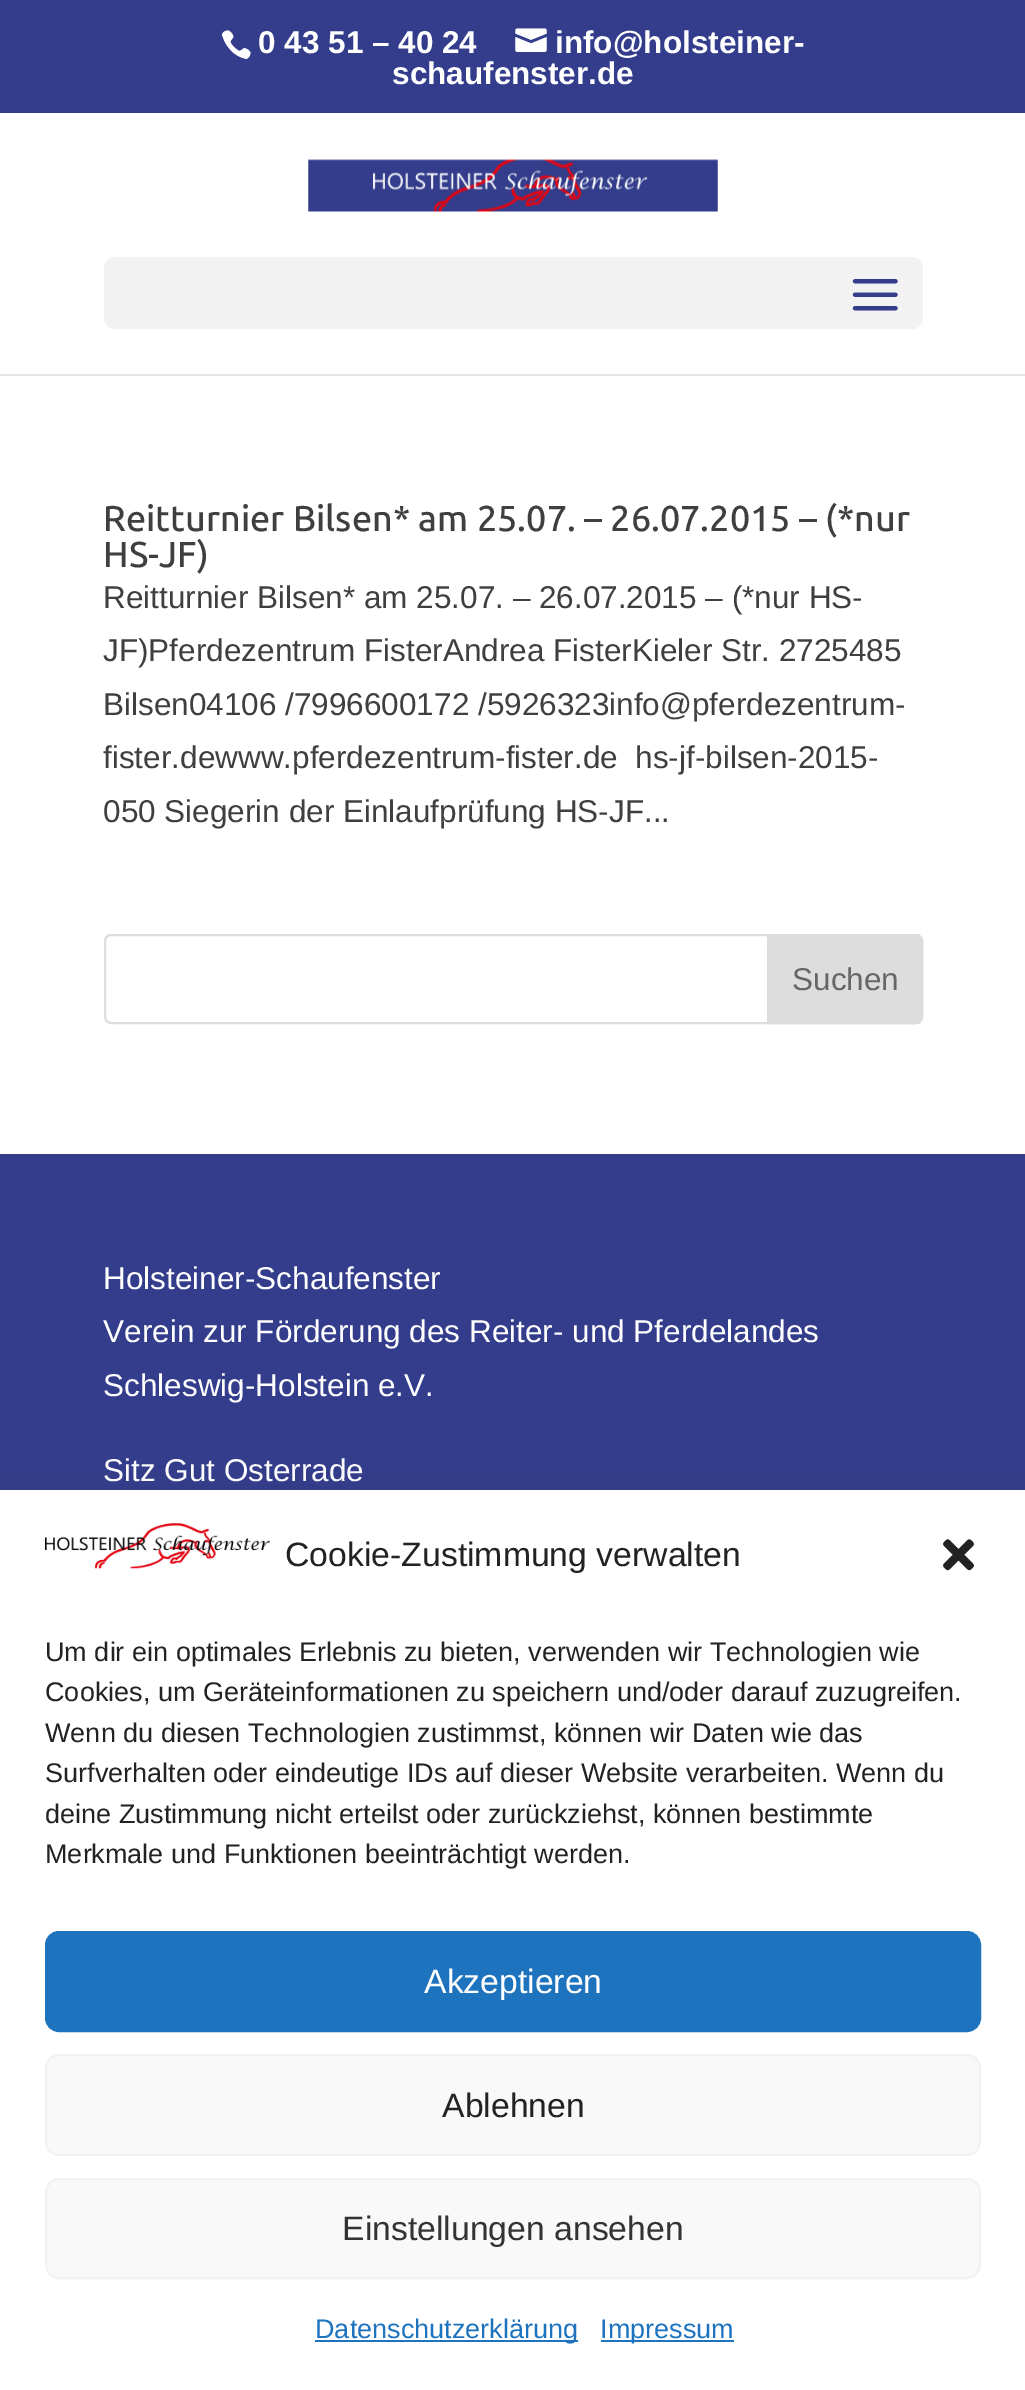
%!PS
<< /PageSize [1025 2390] /PageUsesTransparency true >> setpagedevice
/m/moveto load def
/l/rlineto load def
/c/rcurveto load def
/z/closepath load def
/f/fill load def
/s/stroke load def
/q/gsave load def
/Q_/grestore load def
/w/setlinewidth load def
/C { dup -16 bitshift 255 div exch dup -8 bitshift 255 and 255 div exch 255 and 255 div setrgbcolor } def
/F { [ exch dup neg 0 0 3 -1 roll 0 0 ] selectfont } def
/T { moveto show } def
/R { rectfill } def
/A { dup .setfillconstantalpha .setstrokeconstantalpha } def
/Q { 5 dict begin { /r /h /w /y /x } { exch def } forall
  x r add y moveto x w add y 2 copy h add r arct x w add y h add x 1 index r arct
  x y h add x y r arct x y 2 copy exch w add exch r arct closepath end } def
/S { 12 dict begin { /a /b /q /h /w /y /x } { exch def } forall gsave /was 0 def
  9 -2 -9 { dup b mul 4 div /e exch def 1 sub .425 mul 2.718 exch exp 1 add a .99 .min exch div /now exch def
    1 1 now sub 1 was sub div sub A /was now def
    w h .min e 2 mul add 0 gt { x e sub y e sub w e 2 mul add h e 2 mul add
      q e add b .6 mul add w h .min 2 div e add .min 0 .max Q fill } if } for grestore end } def
/I { 5 dict begin { /h /w /y /x /name } { exch def } forall
  gsave x y translate w h scale
  w h 8 [w 0 0 h 0 0] name (r) file false 3 colorimage grestore end } def
0 .pushpdf14devicefilter
0 2390 translate 1 -1 scale
4 setmiterlimit
16#333D8C C
0 0 1025 2390 R
(1.rgb) 221 30 30 30 I
/LiberationSans-Bold 31.5 F
16#FFFFFF C
(0 43 51 – 40 24) 258 53 T
(2.rgb) 515 28 32 24 I
(info@holsteiner-) 555 53 T
(schaufenster.de) 392 84 T
16#E6E6E6 C
0 374 1025 2 R
16#FFFFFF C
0 113 1025 261 R
(3.rgb) 308 159 410 53 I
16#F2F2F2 C
104 257 819 72 11 Q f
(4.rgb) 852 279 46 32 I
16#FFFFFF C
0 376 1025 778 R
/Ubuntu-Medium 36 F
16#3F3F3F C
(Reitturnier Bilsen* am 25.07. – 26.07.2015 – \(*nur) 103 531 T
(HS-JF\)) 103 567 T
/LiberationSans-Regular 31.5 F
(Reitturnier Bilsen* am 25.07. – 26.07.2015 – \(*nur HS-) 103 608 T
(JF\)Pferdezentrum FisterAndrea FisterKieler Str. 2725485) 103 661 T
(Bilsen04106 /7996600172 /5926323info@pferdezentrum-) 103 715 T
(fister.dewww.pferdezentrum-fister.de  hs-jf-bilsen-2015-) 103 768 T
(050 Siegerin der Einlaufprüfung HS-JF...) 103 822 T
16#DDDDDD C
2 w
105 935 817 88 6 Q s
768 935 m 148 0 l 3.5 0 6 2.5 6 6 c 0 76 l 0 3.5 -2.5 6 -6 6 c -148 0 l z q f Q_
s
16#666666 C
(Suchen) 792 990 T
16#FFFFFF C
(Holsteiner-Schaufenster) 103 1289 T
(Verein zur Förderung des Reiter- und Pferdelandes) 103 1342 T
(Schleswig-Holstein e.V.) 103 1396 T
(Sitz Gut Osterrade) 103 1481 T
16#000000 C
0 1512 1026 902 0 22.5 .19 S
16#FFFFFF C
0 1490 1025 900 R
(5.rgb) 45 1523 225 46 I
/LiberationSans-Regular 33.75 F
16#222222 C
(Cookie-Zustimmung verwalten) 285 1566 T
(6.rgb) 943 1539 31 32 I
/LiberationSans-Regular 27 F
(Um dir ein optimales Erlebnis zu bieten, verwenden wir Technologien wie) 45 1661 T
(Cookies, um Geräteinformationen zu speichern und/oder darauf zuzugreifen.) 45 1701 T
(Wenn du diesen Technologien zustimmst, können wir Daten wie das) 45 1742 T
(Surfverhalten oder eindeutige IDs auf dieser Website verarbeiten. Wenn du) 45 1782 T
(deine Zustimmung nicht erteilst oder zurückziehst, können bestimmte) 45 1823 T
(Merkmale und Funktionen beeinträchtigt werden.) 45 1863 T
16#1E73BE C
46 1932 934 99 13 Q q f Q_
s
/LiberationSans-Regular 33.75 F
16#FFFFFF C
(Akzeptieren) 424 1993 T
16#F9F9F9 C
46 2055 934 100 13 Q q f Q_
16#F2F2F2 C
s
16#222222 C
(Ablehnen) 442 2117 T
16#F9F9F9 C
46 2179 934 99 13 Q q f Q_
16#F2F2F2 C
s
16#333333 C
(Einstellungen ansehen) 342 2240 T
16#1E73BE C
315 2340 263 2 R
/LiberationSans-Regular 27 F
(Datenschutzerklärung) 315 2338 T
601 2340 133 2 R
(Impressum) 600 2338 T
.poppdf14devicefilter showpage
